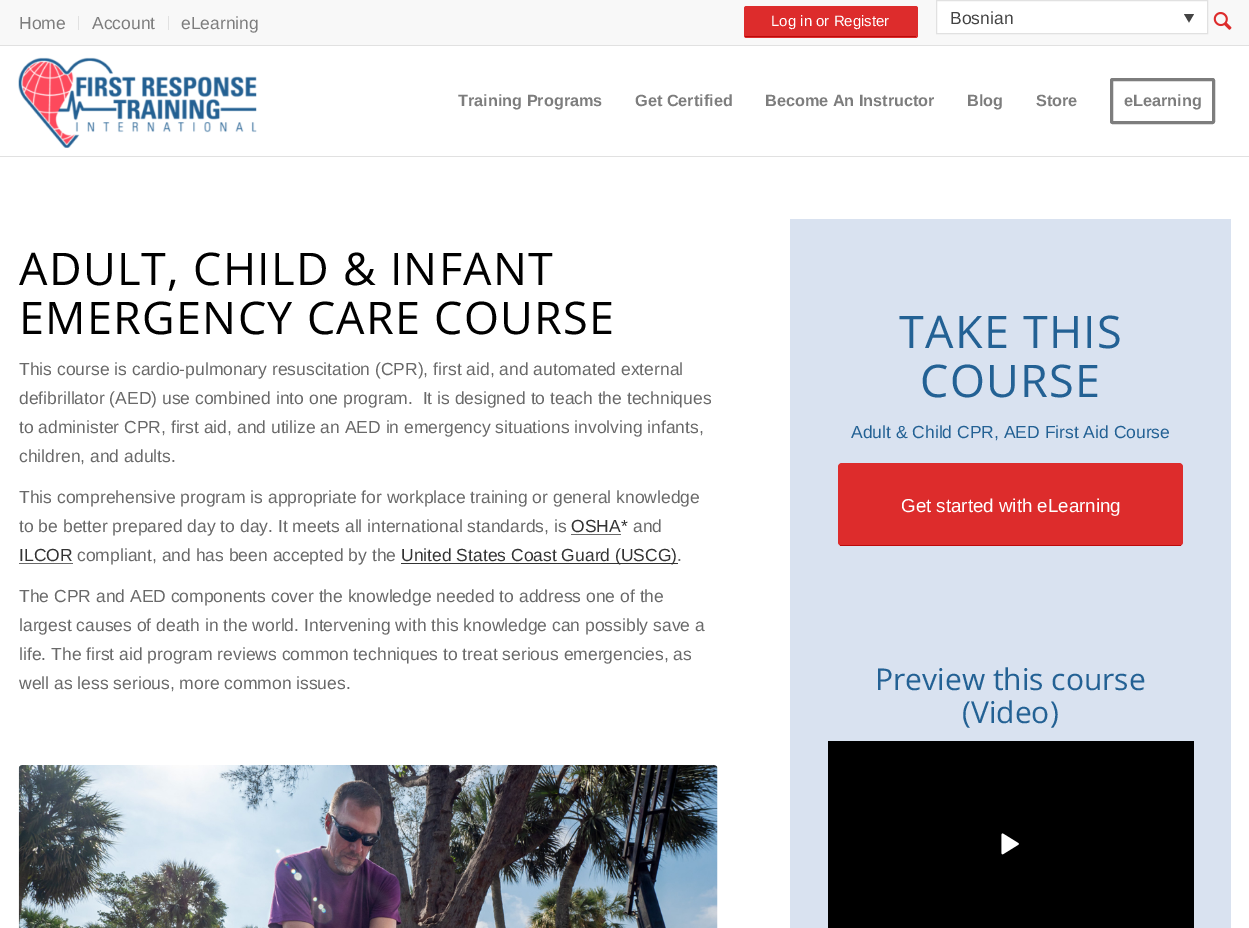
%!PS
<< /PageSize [1249 928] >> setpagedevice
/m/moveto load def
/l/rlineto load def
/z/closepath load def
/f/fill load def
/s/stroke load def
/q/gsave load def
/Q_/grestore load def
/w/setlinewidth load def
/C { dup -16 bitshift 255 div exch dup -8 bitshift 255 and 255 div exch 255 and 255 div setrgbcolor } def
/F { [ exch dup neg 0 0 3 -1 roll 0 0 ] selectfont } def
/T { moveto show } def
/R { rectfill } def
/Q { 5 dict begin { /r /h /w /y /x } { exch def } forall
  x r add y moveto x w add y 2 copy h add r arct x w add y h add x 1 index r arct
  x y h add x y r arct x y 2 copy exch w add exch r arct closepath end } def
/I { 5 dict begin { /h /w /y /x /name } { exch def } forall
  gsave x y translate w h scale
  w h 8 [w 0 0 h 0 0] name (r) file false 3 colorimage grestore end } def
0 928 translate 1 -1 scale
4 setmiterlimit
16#FFFFFF C
0 0 1249 928 R
16#F8F8F8 C
0 0 1249 45 R
16#E1E1E1 C
0 45 1249 1 R
78 16 1 14 R
/LiberationSans-Regular 17.5 F
16#7D7D7D C
(Home) 19 29 T
16#E1E1E1 C
168 16 1 14 R
16#7D7D7D C
(Account) 92 29 T
(eLearning) 181 29 T
16#DD2C2C C
744 6 174 32 2.5 Q f
16#BB0A0A C
745 36 171 1 R
/LiberationSans-Regular 15 F
16#FFFFFF C
(Log in or Register) 771 26 T
936.5 .5 m 271 0 l 0 33 l -271 0 l z q f Q_
16#E1E1E1 C
s
/LiberationSans-Regular 17.5 F
16#444444 C
(Bosnian) 950 24 T
1184 14 m 10 0 l -5 8.5 l z f
(1.rgb) 1213 12 19 18 I
16#E1E1E1 C
0 156 1249 1 R
(2.rgb) 18 57 239 91 I
/LiberationSans-Bold 16.25 F
16#7D7D7D C
(Training Programs) 458 106 T
(Get Certified) 635 106 T
(Become An Instructor) 765 106 T
(Blog) 967 106 T
(Store) 1036 106 T
3 w
1111.5 79.5 102 43 1 Q s
(eLearning) 1124 106 T
/OpenSans-Regular 45 F
16#000000 C
19 285 m 1.25 0 (ADULT, CHILD & INFANT) ashow
19 334 m 1.25 0 (EMERGENCY CARE COURSE) ashow
/LiberationSans-Regular 17.5 F
16#696969 C
(This course is cardio-pulmonary resuscitation \(CPR\), first aid, and automated external) 19 375 T
(defibrillator \(AED\) use combined into one program.  It is designed to teach the techniques) 19 404 T
(to administer CPR, first aid, and utilize an AED in emergency situations involving infants,) 19 433 T
(children, and adults.) 19 462 T
(This comprehensive program is appropriate for workplace training or general knowledge) 19 503 T
(to be better prepared day to day. It meets all international standards, is) 19 532 T
16#333333 C
(OSHA*) 571 532 T
16#696969 C
571 534 50 1 R
(and) 633 532 T
16#333333 C
(ILCOR) 19 561 T
16#696969 C
19 563 54 1 R
(compliant, and has been accepted by the) 77 561 T
16#333333 C
401 563 277 1 R
(United States Coast Guard \(USCG\)) 401 561 T
16#696969 C
(.) 677 561 T
(The CPR and AED components cover the knowledge needed to address one of the) 19 602 T
(largest causes of death in the world. Intervening with this knowledge can possibly save a) 19 631 T
(life. The first aid program reviews common techniques to treat serious emergencies, as) 19 660 T
(well as less serious, more common issues.) 19 689 T
(3.rgb) 18 765 700 163 I
16#D9E2F0 C
790 219 441 709 R
/OpenSans-Regular 45 F
16#236194 C
899 348 m 1.25 0 (TAKE THIS) ashow
920 397 m 1.25 0 (COURSE) ashow
/LiberationSans-Regular 17.5 F
(Adult & Child CPR, AED First Aid Course) 851 438 T
16#DD2C2C C
838 463 345 83 4 Q f
16#BB0A0A C
840 545 341 1 R
/LiberationSans-Regular 18.75 F
16#FFFFFF C
(Get started with eLearning) 901 512 T
/OpenSans-Regular 30 F
16#236194 C
(Preview this course) 875 690 T
(\(Video\)) 962 723 T
16#000000 C
828 741 366 187 R
(4.rgb) 1001 833 18 22 I
showpage
